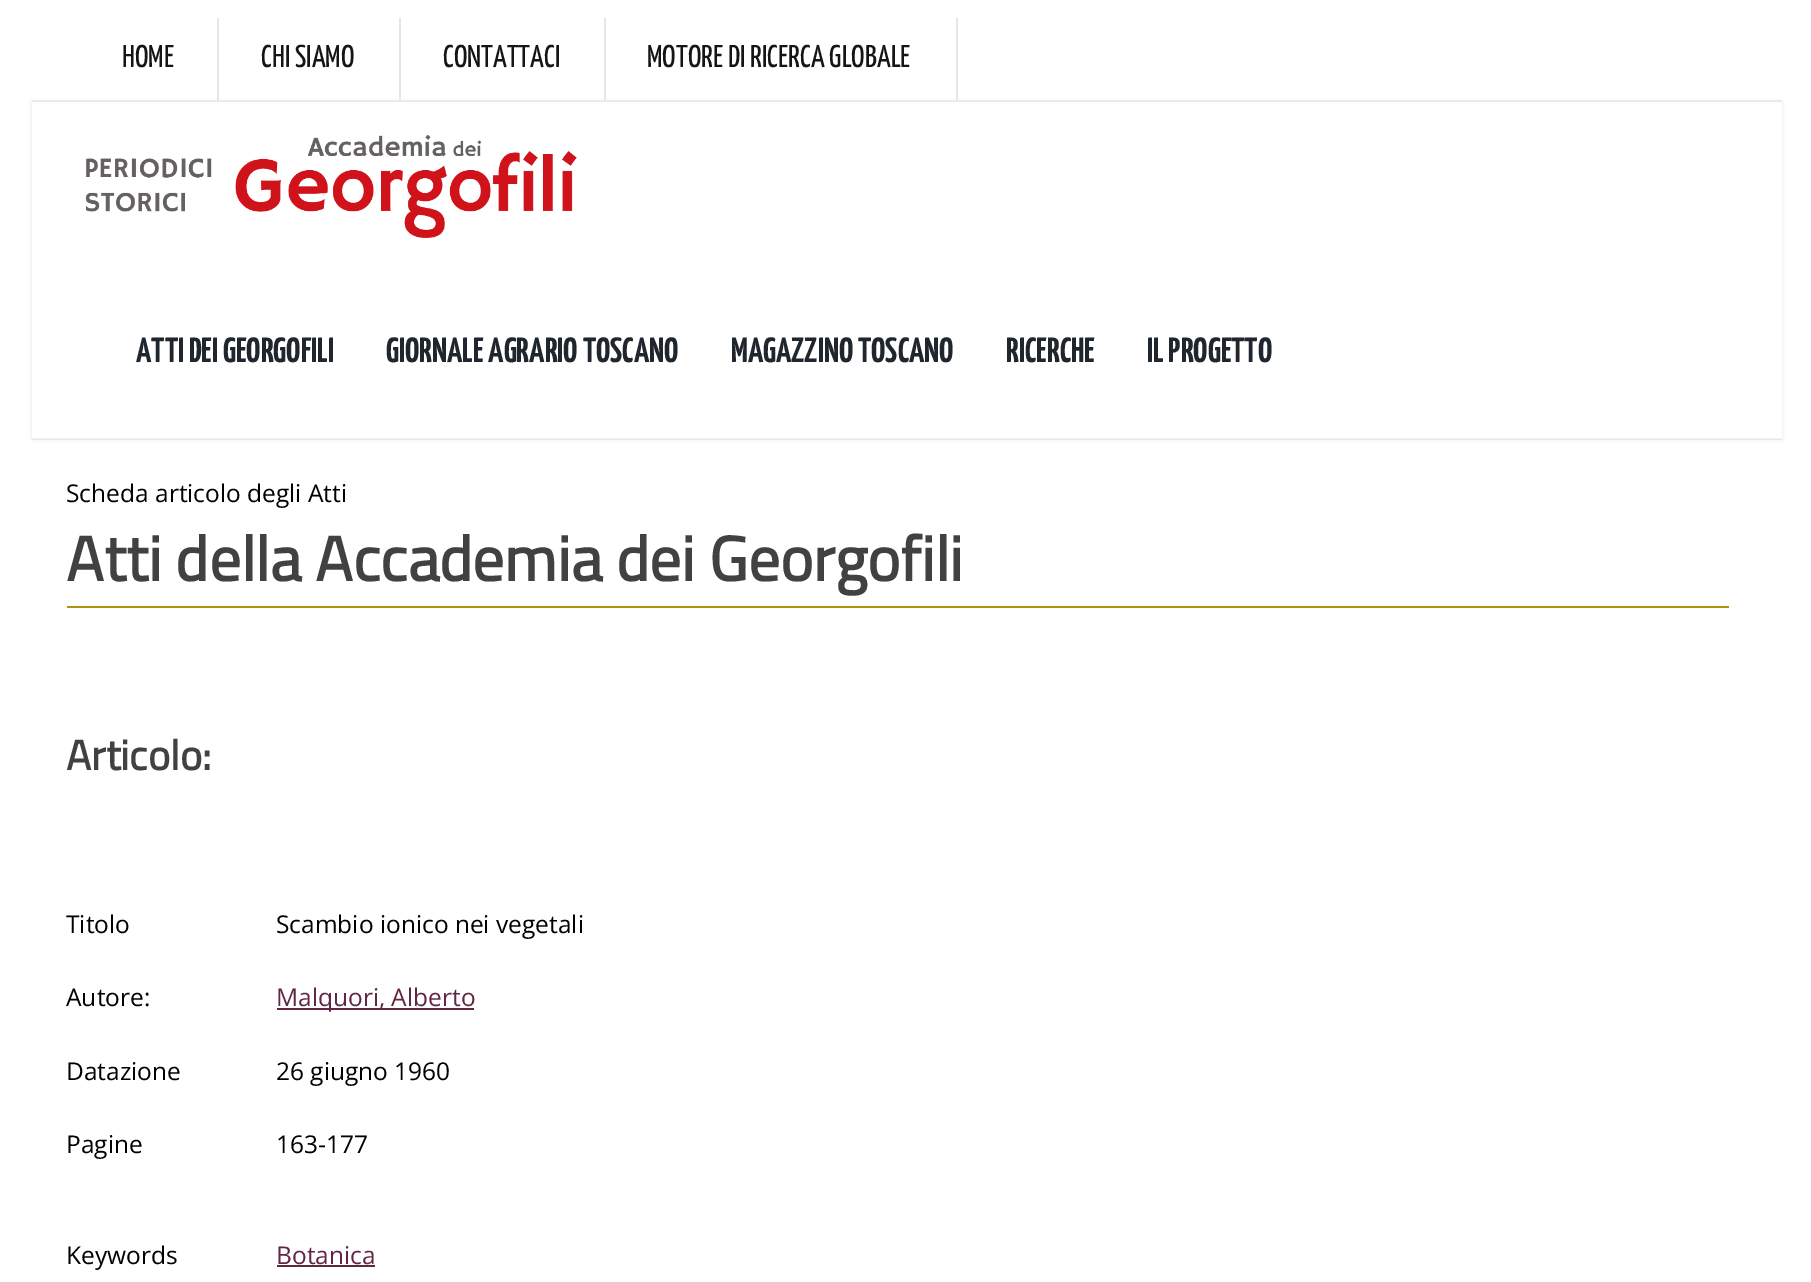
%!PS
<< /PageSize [1811 1282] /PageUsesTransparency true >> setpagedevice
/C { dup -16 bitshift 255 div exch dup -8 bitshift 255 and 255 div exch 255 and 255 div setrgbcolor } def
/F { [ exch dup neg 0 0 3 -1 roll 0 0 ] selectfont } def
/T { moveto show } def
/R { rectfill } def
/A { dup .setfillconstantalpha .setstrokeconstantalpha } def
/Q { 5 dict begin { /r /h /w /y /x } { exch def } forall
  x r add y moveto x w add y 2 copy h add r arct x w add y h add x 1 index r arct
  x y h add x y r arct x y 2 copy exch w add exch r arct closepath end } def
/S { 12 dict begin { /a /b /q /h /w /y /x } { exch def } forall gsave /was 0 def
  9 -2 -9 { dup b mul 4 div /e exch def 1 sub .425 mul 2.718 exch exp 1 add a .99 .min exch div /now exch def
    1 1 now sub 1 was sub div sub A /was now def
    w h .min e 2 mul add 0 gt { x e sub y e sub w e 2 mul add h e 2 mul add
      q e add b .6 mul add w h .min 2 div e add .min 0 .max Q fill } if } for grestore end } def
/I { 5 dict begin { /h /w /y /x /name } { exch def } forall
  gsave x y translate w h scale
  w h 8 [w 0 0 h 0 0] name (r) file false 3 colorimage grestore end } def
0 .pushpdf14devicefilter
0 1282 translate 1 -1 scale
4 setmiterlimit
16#FFFFFF C
0 0 1811 1282 R
16#F2F2F2 C
32 100 1750 2 R
16#E6E6E6 C
217 18 2 82 R
/YanoneKaffeesatz-Regular 31.5 F
16#151515 C
(HOME) 122 67 T
16#E6E6E6 C
399 18 2 82 R
16#151515 C
(CHI SIAMO) 261 67 T
16#E6E6E6 C
604 18 2 82 R
16#151515 C
(CONTATTACI) 443 67 T
16#E6E6E6 C
956 18 2 82 R
16#151515 C
(MOTORE DI RICERCA GLOBALE) 647 67 T
16#000000 C
32 102 1750 337 0 2 .1 S
16#FFFFFF C
32 102 1750 337 R
0.05 A
16#000000 C
32 438 1750 2 R
1 A
(1.rgb) 85 134 492 104 I
/YanoneKaffeesatz-Bold 35 F
16#1F262D C
(ATTI DEI GEORGOFILI) 136 362 T
(GIORNALE AGRARIO TOSCANO) 386 362 T
(MAGAZZINO TOSCANO) 731 362 T
(RICERCHE) 1006 362 T
(IL PROGETTO) 1147 362 T
/OpenSans-Regular 24.5 F
16#000000 C
(Scheda articolo degli Atti) 66 502 T
16#AE9312 C
67 606 1662 2 R
/TitilliumWeb-Bold 63 F
16#414141 C
(Atti della Accademia dei Georgofili) 66 581 T
/TitilliumWeb-Bold 42 F
(Articolo:) 66 770 T
/OpenSans-Regular 24.5 F
16#000000 C
(Titolo) 66 933 T
(Scambio ionico nei vegetali) 276 933 T
(Autore:) 66 1006 T
16#632642 C
277 1008 197 2 R
(Malquori, Alberto) 276 1006 T
16#000000 C
(Datazione) 66 1080 T
(26 giugno 1960) 276 1080 T
(Pagine) 66 1153 T
(163-177) 276 1153 T
(Keywords) 66 1264 T
16#632642 C
(Botanica) 276 1264 T
277 1265 98 2 R
.poppdf14devicefilter showpage
